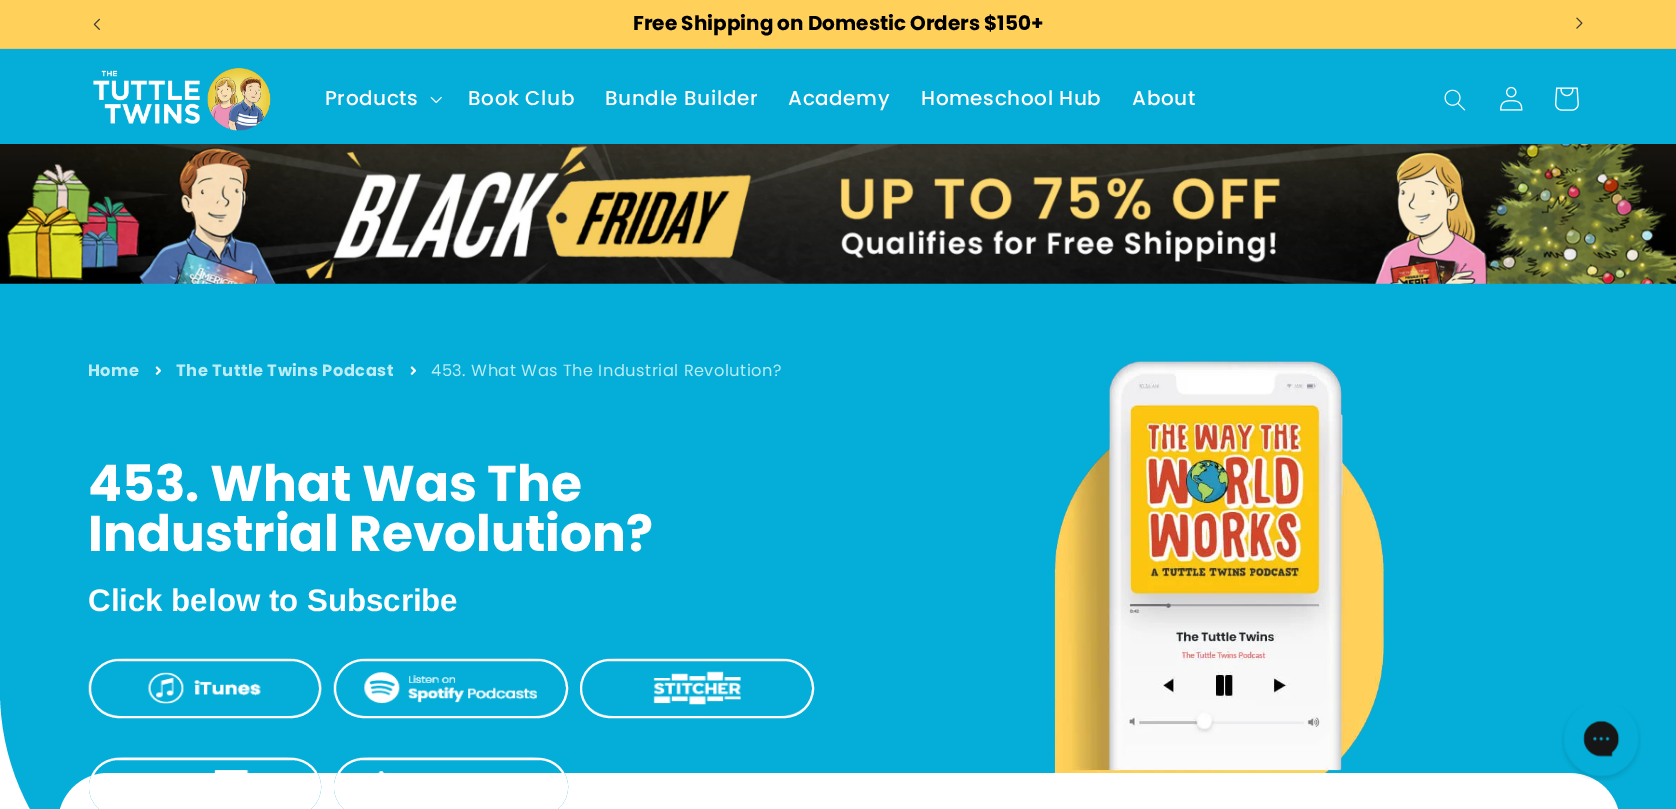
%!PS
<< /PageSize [1676 809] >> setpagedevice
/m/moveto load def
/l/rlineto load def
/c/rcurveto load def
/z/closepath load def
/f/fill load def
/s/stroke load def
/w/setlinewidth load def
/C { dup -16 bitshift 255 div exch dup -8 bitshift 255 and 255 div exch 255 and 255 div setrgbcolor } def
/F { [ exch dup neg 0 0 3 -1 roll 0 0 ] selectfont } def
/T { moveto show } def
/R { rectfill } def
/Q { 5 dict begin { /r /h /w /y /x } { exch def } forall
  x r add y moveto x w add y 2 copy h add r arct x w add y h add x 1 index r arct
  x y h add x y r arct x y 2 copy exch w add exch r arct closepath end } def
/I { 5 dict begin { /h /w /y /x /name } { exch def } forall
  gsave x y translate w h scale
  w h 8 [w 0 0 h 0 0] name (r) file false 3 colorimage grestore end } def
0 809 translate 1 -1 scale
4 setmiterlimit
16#FFFFFF C
0 0 1676 809 R
16#FFD05A C
0 0 1676 48 R
16#F0C457 C
0 48 1676 1 R
(1.rgb) 93 18 7 12 I
/Poppins-Bold 20 F
16#000000 C
(Free Shipping on Domestic Orders $150+) 633 30 T
(2.rgb) 1576 17 7 12 I
16#04AED8 C
0 49 1676 95 R
(3.rgb) 93 68 178 63 I
/Poppins-Medium 20 F
16#FFFFFF C
325 105 m .6 0 (Products) ashow
(4.rgb) 430 96 12 8 I
468 105 m .6 0 (Book Club) ashow
605 105 m .6 0 (Bundle Builder) ashow
788 105 m .6 0 (Academy) ashow
921 105 m .6 0 (Homeschool Hub) ashow
1132 105 m .6 0 (About) ashow
(5.rgb) 1444 89 22 22 I
(6.rgb) 1500 86 23 25 I
(7.rgb) 1555 87 24 24 I
(8.rgb) 0 144 1676 140 I
16#04AED8 C
0 284 m 1676 0 l 0 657 l -1425 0 l -138.5 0 -251 -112.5 -251 -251 c z f
/Poppins-Bold 16.25 F
16#BCECF6 C
88 376 m .5 0 (Home) ashow
(9.rgb) 155 366 6 9 I
176 376 m .5 0 (The Tuttle Twins Podcast) ashow
(9.rgb) 410 366 6 9 I
/Poppins-Regular 16.25 F
431 376 m .5 0 (453. What Was The Industrial Revolution?) ashow
/Poppins-Bold 50.25 F
16#FFFFFF C
(453. What Was The) 88 501 T
(Industrial Revolution?) 88 551 T
/LiberationSans-Bold 31.25 F
(Click below to Subscribe) 88 611 T
(10.rgb) 88 658 234 60 I
16#04AED8 C
89.5 659.5 231 58 29 Q s
16#FFFFFF C
2 w
90 660 230 57 28.5 Q s
(11.rgb) 333 658 235 60 I
16#04AED8 C
1 w
334.5 659.5 233 58 29 Q s
16#FFFFFF C
2 w
335 660 232 57 28.5 Q s
(12.rgb) 580 658 234 60 I
16#04AED8 C
1 w
580.5 659.5 233 58 29 Q s
16#FFFFFF C
2 w
581 660 232 57 28.5 Q s
(13.rgb) 90 757 227 20 I
108 773 m 1462 0 l 27.5 0 50 22.5 50 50 c 0 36 l -1562 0 l 0 -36 l 0 -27.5 22.5 -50 50 -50 c z f
16#04AED8 C
1 w
89.5 758.5 231 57 28.5 Q s
16#FFFFFF C
2 w
90 759 230 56 28 Q s
(14.rgb) 338 757 226 16 I
16#04AED8 C
1 w
334.5 758.5 233 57 28.5 Q s
16#FFFFFF C
2 w
335 759 232 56 28 Q s
(15.rgb) 1054 361 331 412 I
(16.rgb) 1561 705 80 76 I
showpage
